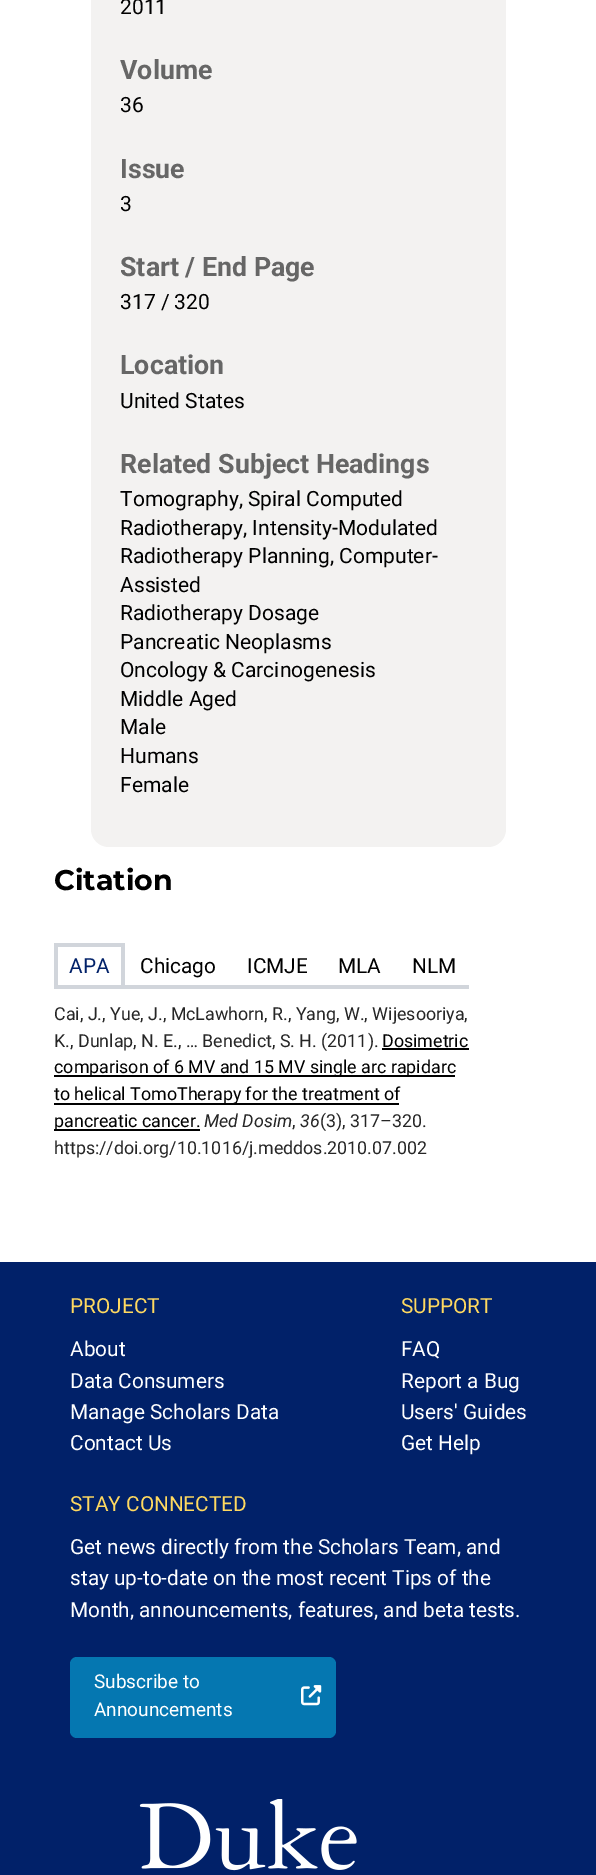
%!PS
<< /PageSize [596 1875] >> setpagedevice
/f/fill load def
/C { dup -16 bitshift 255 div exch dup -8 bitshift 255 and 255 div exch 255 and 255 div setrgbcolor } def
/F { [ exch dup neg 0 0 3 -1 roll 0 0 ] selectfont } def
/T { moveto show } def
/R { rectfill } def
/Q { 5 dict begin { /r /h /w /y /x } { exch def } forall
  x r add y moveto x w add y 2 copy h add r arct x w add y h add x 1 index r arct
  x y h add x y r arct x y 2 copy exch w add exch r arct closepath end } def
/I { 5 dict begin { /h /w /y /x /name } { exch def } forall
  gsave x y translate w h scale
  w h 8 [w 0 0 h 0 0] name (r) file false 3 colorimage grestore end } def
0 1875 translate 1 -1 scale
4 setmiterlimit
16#FFFFFF C
0 0 596 1875 R
16#F3F2F1 C
91 -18 415 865 18 Q f
/Roboto-Regular 21 F
16#000000 C
(2011) 120 14 T
/Roboto-Bold 26.75 F
16#666666 C
(Volume) 120 79 T
/Roboto-Regular 21 F
16#000000 C
(36) 120 112 T
/Roboto-Bold 26.75 F
16#666666 C
(Issue) 120 178 T
/Roboto-Regular 21 F
16#000000 C
(3) 120 211 T
/Roboto-Bold 26.75 F
16#666666 C
(Start / End Page) 120 276 T
/Roboto-Regular 21 F
16#000000 C
(317 / 320) 120 309 T
/Roboto-Bold 26.75 F
16#666666 C
(Location) 120 374 T
/Roboto-Regular 21 F
16#000000 C
(United States) 120 408 T
/Roboto-Bold 26.75 F
16#666666 C
(Related Subject Headings) 120 473 T
/Roboto-Regular 21 F
16#000000 C
(Tomography, Spiral Computed) 120 506 T
(Radiotherapy, Intensity-Modulated) 120 535 T
(Radiotherapy Planning, Computer-) 120 563 T
(Assisted) 120 592 T
(Radiotherapy Dosage) 120 620 T
(Pancreatic Neoplasms) 120 649 T
(Oncology & Carcinogenesis) 120 677 T
(Middle Aged) 120 706 T
(Male) 120 734 T
(Humans) 120 763 T
(Female) 120 792 T
/Montserrat-Bold 28.5 F
(Citation) 54 890 T
16#D1D5DB C
54 943 70 4 R
121 943 4 46 R
54 943 4 46 R
/Roboto-Regular 20.8 F
16#012169 C
(APA) 69 973 T
16#000000 C
(Chicago) 140 973 T
(ICMJE) 247 973 T
(MLA) 338 973 T
(NLM) 412 973 T
16#D1D5DB C
54 985 415 4 R
/Roboto-Regular 17.85 F
16#262626 C
(Cai, J., Yue, J., McLawhorn, R., Yang, W., Wijesooriya,) 54 1020 T
(K., Dunlap, N. E., … Benedict, S. H. \(2011\).) 54 1047 T
16#000000 C
(Dosimetric) 382 1047 T
382 1048 87 2 R
54 1075 401 2 R
(comparison of 6 MV and 15 MV single arc rapidarc) 54 1073 T
54 1103 345 2 R
(to helical TomoTherapy for the treatment of) 54 1100 T
54 1129 146 2 R
(pancreatic cancer.) 54 1127 T
/Roboto-Italic 17.85 F
16#262626 C
(Med Dosim) 204 1127 T
/Roboto-Regular 17.85 F
(,) 292 1127 T
/Roboto-Italic 17.85 F
(36) 300 1127 T
/Roboto-Regular 17.85 F
(\(3\), 317–320.) 320 1127 T
(https://doi.org/10.1016/j.meddos.2010.07.002) 54 1154 T
16#012169 C
0 1262 596 613 R
/Roboto-Regular 20.8 F
16#FFD960 C
(PROJECT) 70 1313 T
16#FFFFFF C
(About) 70 1356 T
(Data Consumers) 70 1388 T
(Manage Scholars Data) 70 1419 T
(Contact Us) 70 1450 T
16#FFD960 C
(SUPPORT) 401 1313 T
16#FFFFFF C
(FAQ) 401 1356 T
(Report a Bug) 401 1388 T
(Users' Guides) 401 1419 T
(Get Help) 401 1450 T
16#FFD960 C
(STAY CONNECTED) 70 1511 T
16#FFFFFF C
(Get news directly from the Scholars Team,) 70 1554 T
(and) 466 1554 T
(stay up-to-date on the most recent Tips of the) 70 1585 T
(Month, announcements, features, and beta tests.) 70 1617 T
16#0577B1 C
70 1657 266 81 7 Q f
/Roboto-Regular 19 F
16#FFFFFF C
(Subscribe to) 94 1688 T
(Announcements) 94 1716 T
(1.rgb) 301 1685 21 21 I
(2.rgb) 139 1799 218 72 I
showpage
